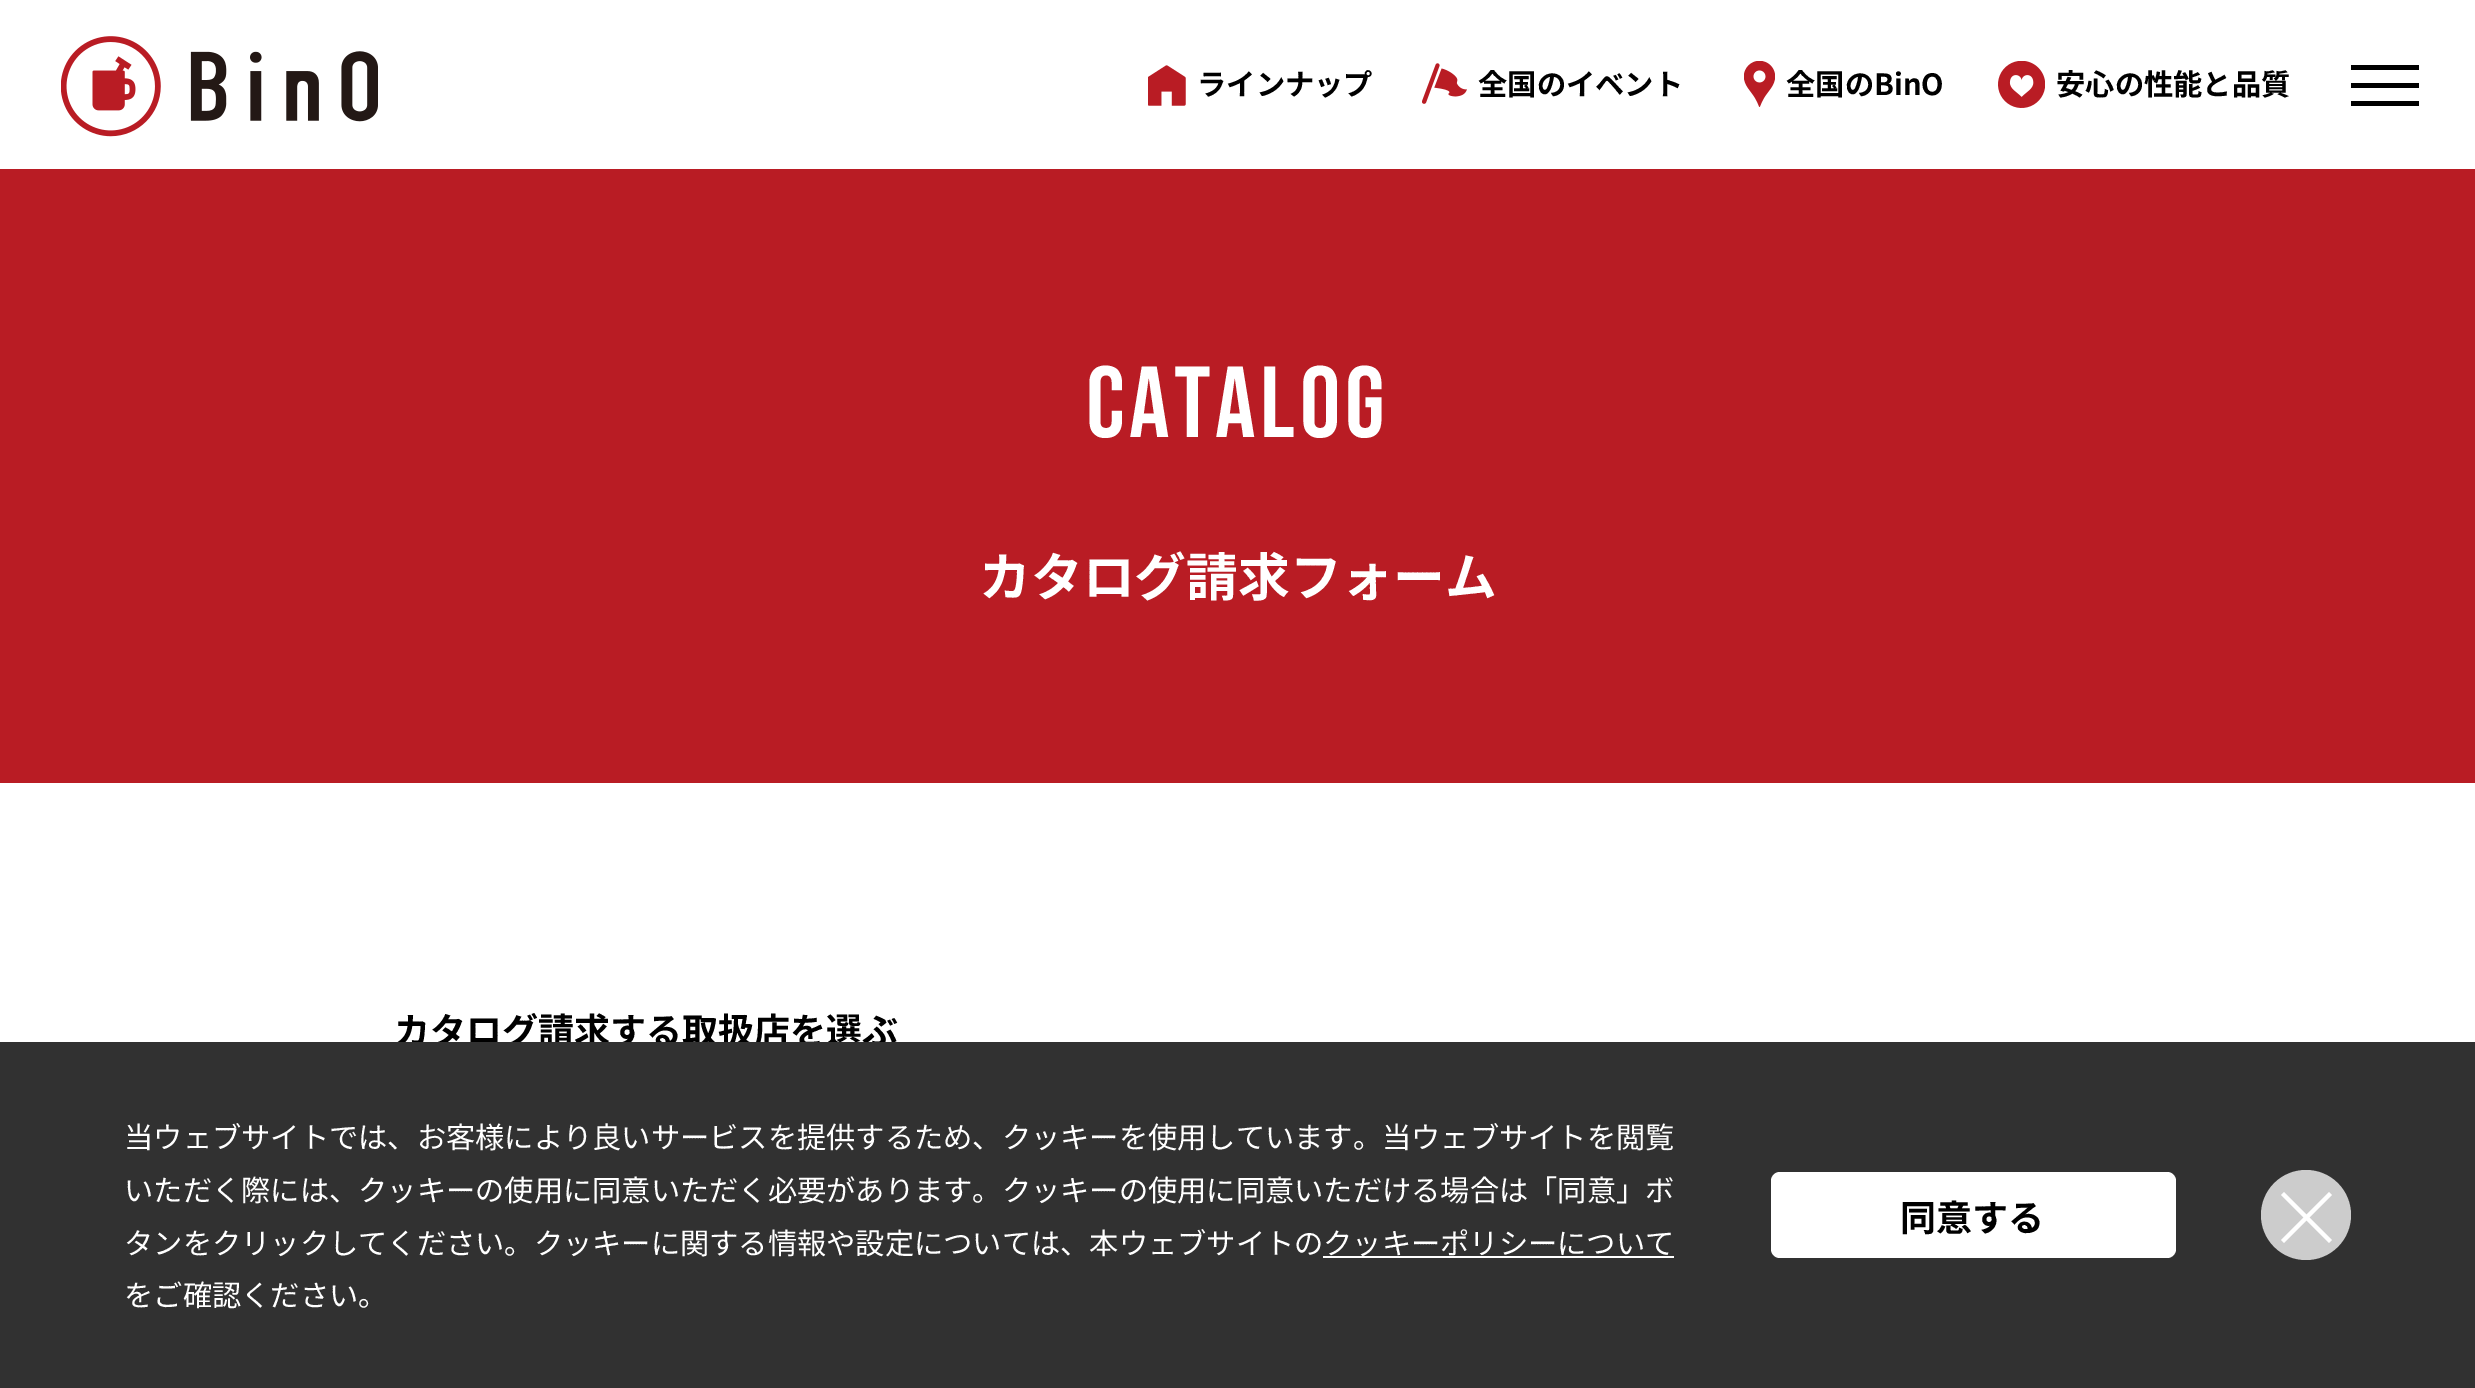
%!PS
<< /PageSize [2475 1388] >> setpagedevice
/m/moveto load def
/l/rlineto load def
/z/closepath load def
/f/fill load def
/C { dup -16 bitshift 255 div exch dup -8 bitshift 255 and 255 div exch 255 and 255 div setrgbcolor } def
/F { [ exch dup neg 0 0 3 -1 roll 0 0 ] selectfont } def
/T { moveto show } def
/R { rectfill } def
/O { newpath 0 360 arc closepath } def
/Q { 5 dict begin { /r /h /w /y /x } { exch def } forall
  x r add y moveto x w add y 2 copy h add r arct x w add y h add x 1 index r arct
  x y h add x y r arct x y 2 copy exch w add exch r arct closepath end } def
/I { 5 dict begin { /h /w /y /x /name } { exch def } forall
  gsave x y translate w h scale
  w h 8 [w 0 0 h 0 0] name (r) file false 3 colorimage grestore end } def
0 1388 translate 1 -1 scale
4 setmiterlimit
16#FFFFFF C
0 0 2475 1388 R
(1.rgb) 61 36 317 101 I
(2.rgb) 1148 65 38 41 I
/NotoSansJP-Bold 29.25 F
16#000000 C
(ラインナップ) 1197 95 T
(3.rgb) 1422 63 45 41 I
(全国のイベント) 1478 95 T
(4.rgb) 1744 61 31 46 I
(全国のBinO) 1786 95 T
(5.rgb) 1998 61 47 47 I
(安心の性能と品質) 2056 95 T
2351 65 68 5 R
2351 83 68 5 R
2351 101 68 5 R
16#B91C24 C
0 169 2475 614 R
/BebasNeue-Regular 101 F
16#FFFFFF C
1086 437 m 4.5 0 (CATALOG) ashow
/NotoSansJP-Bold 51.75 F
(カタログ請求フォーム) 979 596 T
/NotoSansJP-Bold 36 F
16#000000 C
(カタログ請求する取扱店を選ぶ) 394 1044 T
16#313131 C
0 1042 2475 346 R
/NotoSansJP-Regular 29.25 F
16#FFFFFF C
(当ウェブサイトでは、お客様により良いサービスを提供するため、クッキーを使用しています。当ウェブサイトを閲覧) 124 1148 T
(いただく際には、クッキーの使用に同意いただく必要があります。クッキーの使用に同意いただける場合は「同意」ボ) 124 1201 T
(タンをクリックしてください。クッキーに関する情報や設定については、本ウェブサイトの) 124 1254 T
1323 1256 351 2 R
(クッキーポリシーについて) 1323 1254 T
(をご確認ください。) 124 1306 T
1771 1172 405 86 9 Q f
/NotoSansJP-Bold 36 F
16#000000 C
(同意する) 1900 1231 T
16#CCCCCC C
2306 1215 45 O f
16#FFFFFF C
2284 1192 m 48 48 l -3 3 l -48 -48 l z f
2332 1195 m -48 48 l -3 -3 l 48 -48 l z f
showpage
